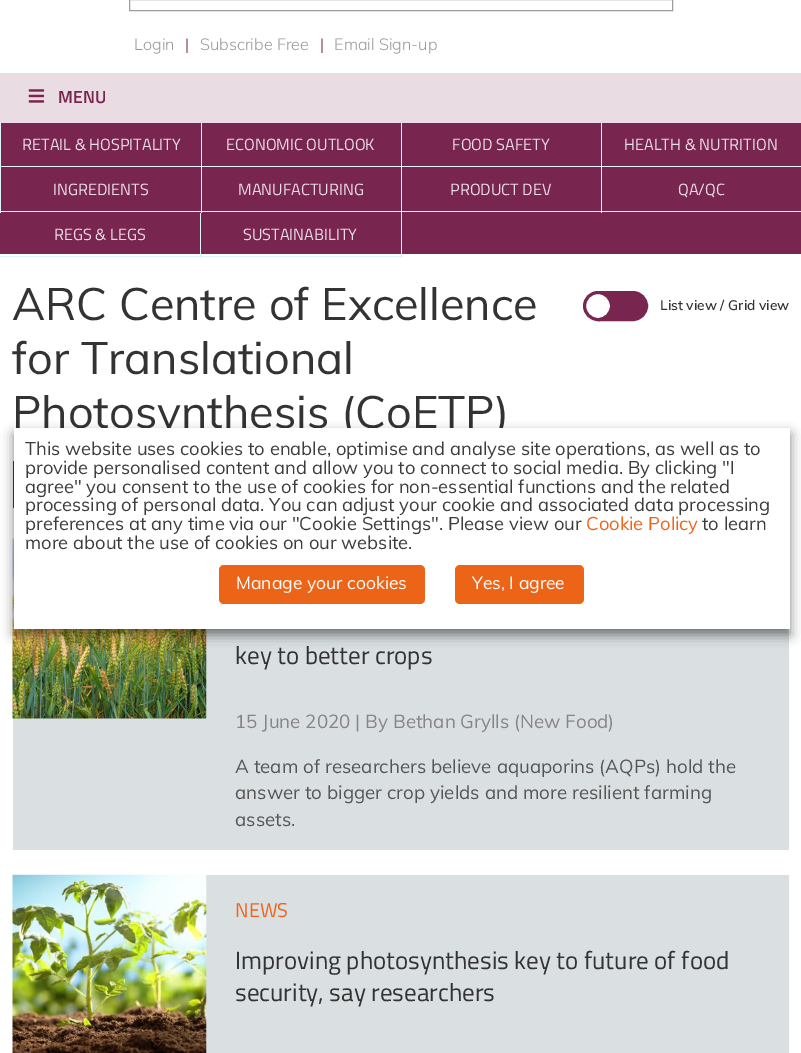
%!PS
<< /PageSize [801 1053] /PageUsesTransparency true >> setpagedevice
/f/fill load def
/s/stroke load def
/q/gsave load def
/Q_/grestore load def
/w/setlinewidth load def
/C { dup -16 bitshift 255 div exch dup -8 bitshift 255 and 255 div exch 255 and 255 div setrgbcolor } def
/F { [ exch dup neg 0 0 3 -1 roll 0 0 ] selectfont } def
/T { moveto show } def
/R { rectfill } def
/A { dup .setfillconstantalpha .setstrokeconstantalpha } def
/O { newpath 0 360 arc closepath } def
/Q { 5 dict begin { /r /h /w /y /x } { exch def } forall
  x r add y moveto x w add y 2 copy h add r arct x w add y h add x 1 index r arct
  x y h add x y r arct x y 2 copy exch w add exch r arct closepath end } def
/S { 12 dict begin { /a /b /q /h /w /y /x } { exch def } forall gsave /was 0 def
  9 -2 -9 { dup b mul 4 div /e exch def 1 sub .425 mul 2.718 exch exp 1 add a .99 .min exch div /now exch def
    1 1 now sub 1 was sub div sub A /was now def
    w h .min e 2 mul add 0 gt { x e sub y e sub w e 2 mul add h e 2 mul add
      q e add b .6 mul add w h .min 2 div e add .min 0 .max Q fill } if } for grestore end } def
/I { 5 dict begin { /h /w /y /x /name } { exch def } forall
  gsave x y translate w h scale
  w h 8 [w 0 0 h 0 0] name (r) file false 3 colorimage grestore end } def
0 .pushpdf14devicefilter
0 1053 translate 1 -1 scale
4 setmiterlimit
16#FFFFFF C
0 0 801 1053 R
16#9D9D9D C
129.5 -.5 543 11 rectstroke
/Muli-Light 16.25 F
16#999999 C
(Login) 134 50 T
16#78254F C
(|) 185 50 T
16#999999 C
(Subscribe Free) 200 50 T
16#78254F C
(|) 320 50 T
16#999999 C
(Email Sign-up) 334 50 T
16#E9DCE3 C
0 73 801 50 R
(1.rgb) 28 89 17 14 I
/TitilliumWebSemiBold-SemiBold 17.5 F
16#78254F C
(MENU) 58 103 T
0 123 801 131 R
16#E0F2FA C
201 123 1 90 R
0 166 203 1 R
0 123 1 45 R
/TitilliumWeb-Regular 16.25 F
16#E9DCE3 C
(RETAIL & HOSPITALITY) 22 150 T
16#E0F2FA C
401 123 1 135 R
200 166 203 1 R
16#E9DCE3 C
(ECONOMIC OUTLOOK) 226 150 T
16#E0F2FA C
601 123 1 90 R
401 166 400 1 R
16#E9DCE3 C
(FOOD SAFETY) 452 150 T
(HEALTH & NUTRITION) 624 150 T
16#E0F2FA C
0 211 801 1 R
0 168 1 45 R
16#E9DCE3 C
(INGREDIENTS) 53 195 T
(MANUFACTURING) 238 195 T
(PRODUCT DEV) 450 195 T
(QA/QC) 678 195 T
16#E0F2FA C
200 213 1 45 R
0 256 403 1 R
16#E9DCE3 C
(REGS & LEGS) 54 240 T
(SUSTAINABILITY) 243 240 T
/Muli-Regular 45 F
16#333333 C
(ARC Centre of Excellence) 12 320 T
(for Translational) 12 374 T
(Photosynthesis \(CoETP\)) 12 428 T
16#78254F C
586.5 292.5 60 27 13.5 Q q f Q_
3 w
s
16#FFFFFF C
598 306 13.5 O q f Q_
16#78254F C
s
/Muli-SemiBold 13.75 F
16#333333 C
(List view / Grid view) 660 310 T
16#78254F C
13 461 1 47 R
16#DADFE2 C
13 629 776 221 R
(2.rgb) 12 538 195 181 I
/TitilliumWeb-Regular 25 F
16#333333 C
(key to better crops) 235 664 T
/Muli-Regular 18.75 F
16#868484 C
(15 June 2020 | By Bethan Grylls \(New Food\)) 235 728 T
16#555555 C
(A team of researchers believe aquaporins \(AQPs\) hold the) 235 773 T
(answer to bigger crop yields and more resilient farming) 235 799 T
(assets.) 235 826 T
16#DADFE2 C
206 875 583 178 R
(3.rgb) 12 874 195 179 I
/TitilliumWeb-Regular 20 F
16#EC6418 C
(NEWS) 235 917 T
/TitilliumWeb-Regular 25 F
16#333333 C
(Improving photosynthesis key to future of food) 235 969 T
(security, say researchers) 235 1001 T
16#000000 C
14 434 776 201 0 6 .5 S
16#FFFFFF C
14 428 776 201 R
/Muli-Regular 18.35 F
16#3C3C3B C
(This website uses cookies to enable, optimise and analyse site operations, as well as to) 25 455 T
(provide personalised content and allow you to connect to social media. By clicking "I) 25 474 T
(agree" you consent to the use of cookies for non-essential functions and the related) 25 493 T
(processing of personal data. You can adjust your cookie and associated data processing) 25 511 T
(preferences at any time via our "Cookie Settings". Please view our) 25 530 T
16#EC6418 C
(Cookie Policy) 586 530 T
16#3C3C3B C
(to learn) 702 530 T
(more about the use of cookies on our website.) 25 549 T
16#EC6418 C
219 565 206 39 5 Q f
/Muli-Regular 17.5 F
16#FFFFFF C
(Manage your cookies) 236 589 T
16#EC6418 C
455 565 129 39 5 Q f
16#FFFFFF C
(Yes, I agree) 472 589 T
.poppdf14devicefilter showpage
